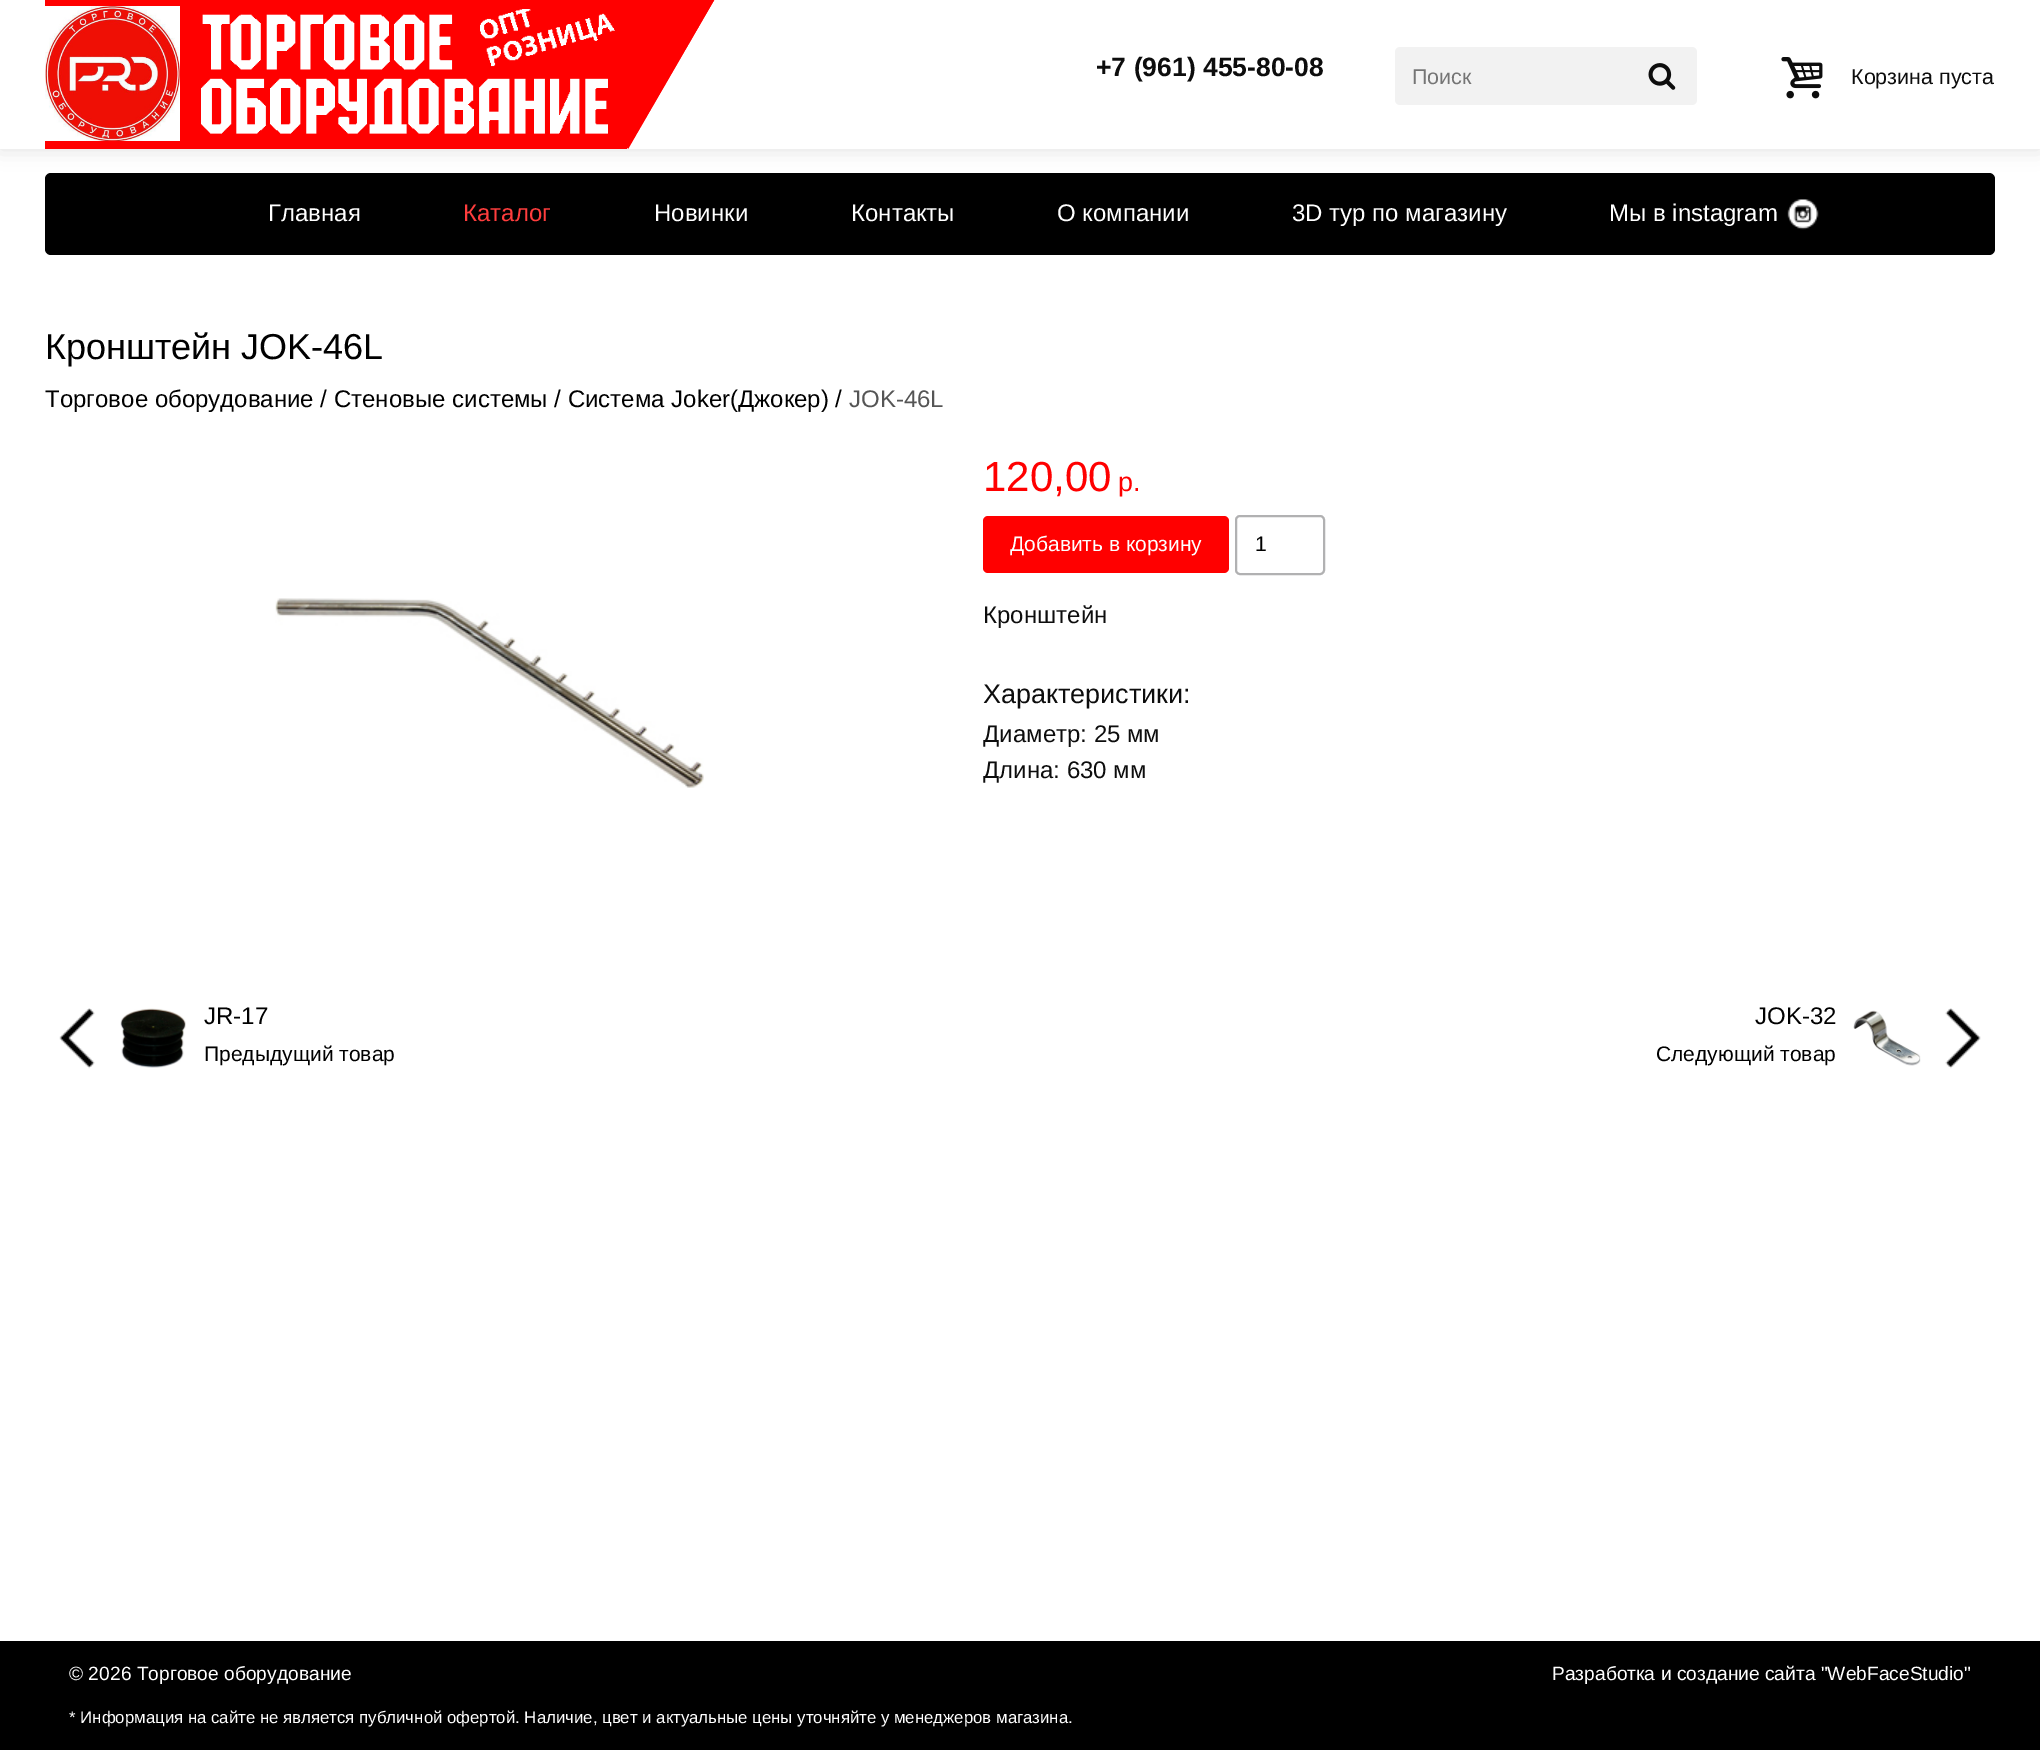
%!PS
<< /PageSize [2040 1750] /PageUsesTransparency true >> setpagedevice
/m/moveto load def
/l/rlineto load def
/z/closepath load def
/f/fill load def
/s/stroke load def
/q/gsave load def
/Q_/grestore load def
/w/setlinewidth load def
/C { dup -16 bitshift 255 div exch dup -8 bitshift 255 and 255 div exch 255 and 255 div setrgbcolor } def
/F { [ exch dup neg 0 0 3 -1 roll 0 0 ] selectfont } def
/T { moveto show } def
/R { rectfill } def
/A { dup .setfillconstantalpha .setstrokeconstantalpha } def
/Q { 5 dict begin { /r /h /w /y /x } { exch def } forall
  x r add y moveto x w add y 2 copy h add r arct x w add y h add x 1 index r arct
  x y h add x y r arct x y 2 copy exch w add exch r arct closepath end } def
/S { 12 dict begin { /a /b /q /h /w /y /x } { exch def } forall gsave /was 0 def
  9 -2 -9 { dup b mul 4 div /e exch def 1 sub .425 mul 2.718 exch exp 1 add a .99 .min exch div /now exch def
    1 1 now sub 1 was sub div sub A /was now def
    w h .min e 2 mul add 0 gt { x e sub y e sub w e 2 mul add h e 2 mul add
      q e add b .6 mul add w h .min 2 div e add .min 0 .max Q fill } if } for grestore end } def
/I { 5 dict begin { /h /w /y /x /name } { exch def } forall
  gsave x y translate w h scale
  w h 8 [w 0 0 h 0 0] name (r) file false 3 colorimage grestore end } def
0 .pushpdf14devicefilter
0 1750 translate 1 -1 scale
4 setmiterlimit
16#FFFFFF C
0 0 2040 1750 R
q
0 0 m 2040 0 l 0 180 l -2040 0 l z 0 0 m 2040 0 l 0 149 l -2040 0 l z eoclip newpath
16#000000 C
0 0 2040 149 0 10 .12 S
Q_
16#FF0000 C
45 0 582 149 R
(1.rgb) 45 6 135 135 I
714 0 m -86 148 l -106 -61 l 85 -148 l z f
1.5 w
713 .5 m -85 147 l -105 -61 l 84.5 -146.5 l z s
(2.rgb) 201 9 414 125 I
/LiberationSans-Bold 26.5 F
16#0D0D0D C
(+7 \(961\) 455-80-08) 1096 76 T
16#F2F2F2 C
1395 47 302 58 5 Q f
/LiberationSans-Regular 21.5 F
16#757575 C
(Поиск) 1412 84 T
(3.rgb) 1648 63 28 27 I
(4.rgb) 1781 57 42 42 I
16#0D0D0D C
(Корзина пуста) 1851 84 T
16#000000 C
45 173 1950 82 6 Q f
/LiberationSans-Regular 24 F
16#FFFFFF C
(Главная) 268 221 T
16#FF3D3D C
(Каталог) 463 221 T
16#FFFFFF C
(Новинки) 654 221 T
(Контакты) 851 221 T
(О компании) 1057 221 T
(3D тур по магазину) 1292 221 T
(5.rgb) 1787 199 32 31 I
(Мы в instagram) 1609 221 T
/LiberationSans-Regular 36 F
16#000000 C
(Кронштейн JOK-46L) 45 359 T
/LiberationSans-Regular 24 F
(Торговое оборудование / Стеновые системы / Система Joker\(Джокер\) /) 45 407 T
16#555555 C
(JOK-46L) 849 407 T
(6.rgb) 275 598 429 190 I
/LiberationSans-Regular 42 F
16#FF0000 C
(120,00) 983 491 T
/LiberationSans-Regular 27 F
(р.) 1118 491 T
983 516 246 57 5 Q f
/LiberationSans-Regular 21 F
16#FFFFFF C
(Добавить в корзину) 1010 551 T
16#B1B1B2 C
2 w
1236 516 88 58 4 Q s
16#000000 C
(1) 1255 551 T
/LiberationSans-Regular 24 F
16#0D0D0D C
(Кронштейн) 983 623 T
/LiberationSans-Regular 27 F
(Характеристики:) 983 703 T
/LiberationSans-Regular 24 F
(Диаметр: 25 мм) 983 742 T
(Длина: 630 мм) 983 778 T
(7.rgb) 59 1008 36 61 I
(8.rgb) 120 1008 66 60 I
16#000000 C
(JR-17) 204 1024 T
/LiberationSans-Regular 21 F
(Предыдущий товар) 204 1061 T
(9.rgb) 1945 1008 36 61 I
/LiberationSans-Regular 24 F
(JOK-32) 1755 1024 T
/LiberationSans-Regular 21 F
(Следующий товар) 1656 1061 T
(10.rgb) 1853 1010 68 56 I
0 1641 2040 109 R
/LiberationSans-Regular 19.2 F
16#FFFFFF C
(© 2026 Торговое оборудование) 69 1680 T
(Разработка и создание сайта "WebFaceStudio") 1552 1680 T
/LiberationSans-Regular 16.8 F
(* Информация на сайте не является публичной офертой. Наличие, цвет и актуальные цены уточняйте у менеджеров магазина.) 69 1723 T
.poppdf14devicefilter showpage
